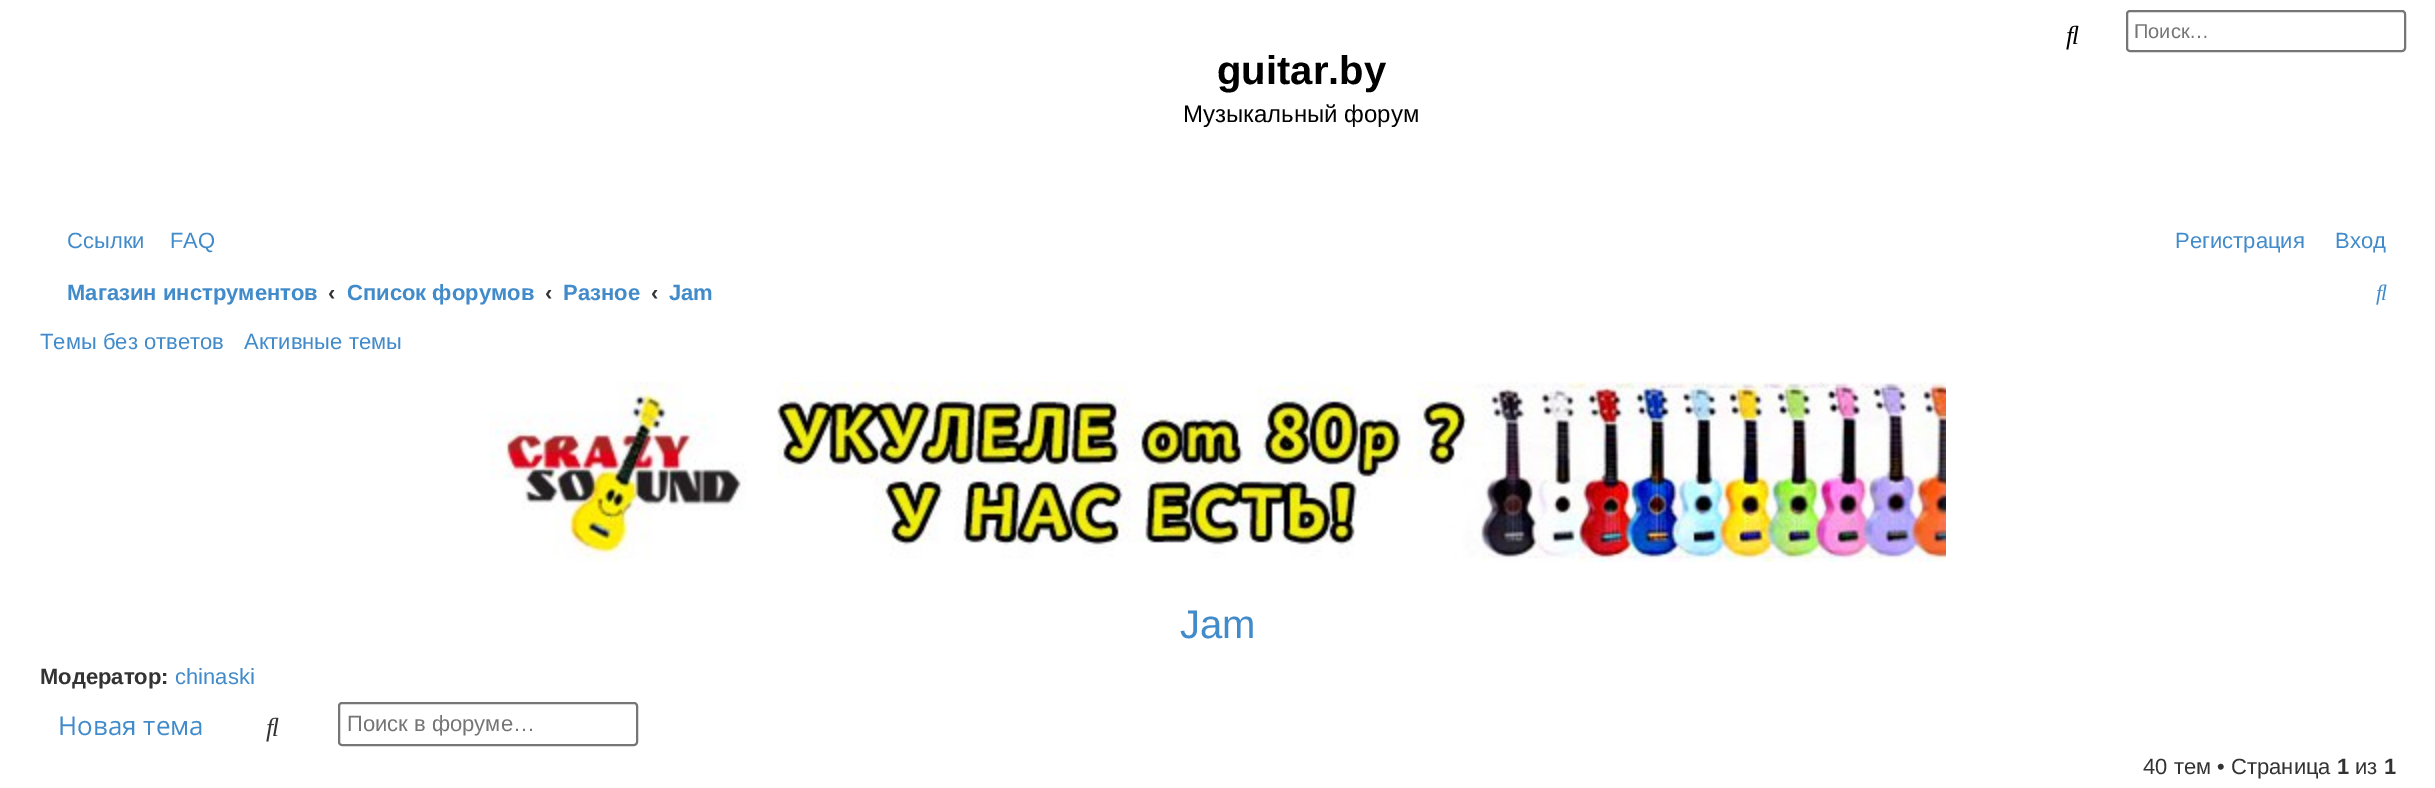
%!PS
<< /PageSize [2435 788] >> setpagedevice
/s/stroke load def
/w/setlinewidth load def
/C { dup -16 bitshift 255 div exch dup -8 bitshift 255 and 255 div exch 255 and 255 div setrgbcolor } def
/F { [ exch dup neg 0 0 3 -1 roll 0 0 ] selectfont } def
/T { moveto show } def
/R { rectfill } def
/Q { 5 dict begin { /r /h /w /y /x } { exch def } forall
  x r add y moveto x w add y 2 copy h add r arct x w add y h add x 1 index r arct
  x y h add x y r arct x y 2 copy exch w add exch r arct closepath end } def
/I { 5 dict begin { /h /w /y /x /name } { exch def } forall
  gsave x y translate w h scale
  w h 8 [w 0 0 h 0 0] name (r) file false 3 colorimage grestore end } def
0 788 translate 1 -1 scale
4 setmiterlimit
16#FFFFFF C
0 0 2435 788 R
(1.rgb) 2066 25 13 25 I
16#767676 C
2 w
2127 11 278 40 3 Q s
/LiberationSans-Regular 20 F
16#757575 C
(Поиск…) 2134 38 T
/LiberationSans-Bold 40 F
16#000000 C
(guitar.by) 1217 84 T
/LiberationSans-Regular 24 F
(Музыкальный форум) 1183 122 T
/LiberationSans-Regular 22 F
16#428BCA C
(Ссылки) 67 248 T
(FAQ) 170 248 T
(Регистрация) 2175 248 T
(Вход) 2335 248 T
/LiberationSans-Bold 22 F
(Магазин инструментов) 67 300 T
16#333333 C
(‹) 328 300 T
16#428BCA C
(Список форумов) 347 300 T
16#333333 C
(‹) 545 300 T
16#428BCA C
(Разное) 563 300 T
16#333333 C
(‹) 651 300 T
16#428BCA C
(Jam) 669 300 T
(2.rgb) 2376 284 11 21 I
/LiberationSans-Regular 22 F
(Темы без ответов) 40 349 T
(Активные темы) 244 349 T
(3.rgb) 490 382 1456 180 I
/LiberationSans-Regular 40 F
(Jam) 1180 638 T
/LiberationSans-Bold 22 F
16#333333 C
(Модератор:) 40 684 T
/LiberationSans-Regular 22 F
16#428BCA C
(chinaski) 175 684 T
/OpenSans-Regular 26 F
(Новая тема) 58 735 T
(4.rgb) 266 717 13 25 I
16#767676 C
339 703 298 42 3 Q s
/LiberationSans-Regular 22 F
16#757575 C
(Поиск в форуме…) 347 731 T
16#333333 C
(40 тем • Страница) 2143 774 T
/LiberationSans-Bold 22 F
(1) 2337 774 T
/LiberationSans-Regular 22 F
(из) 2355 774 T
/LiberationSans-Bold 22 F
(1) 2384 774 T
showpage
